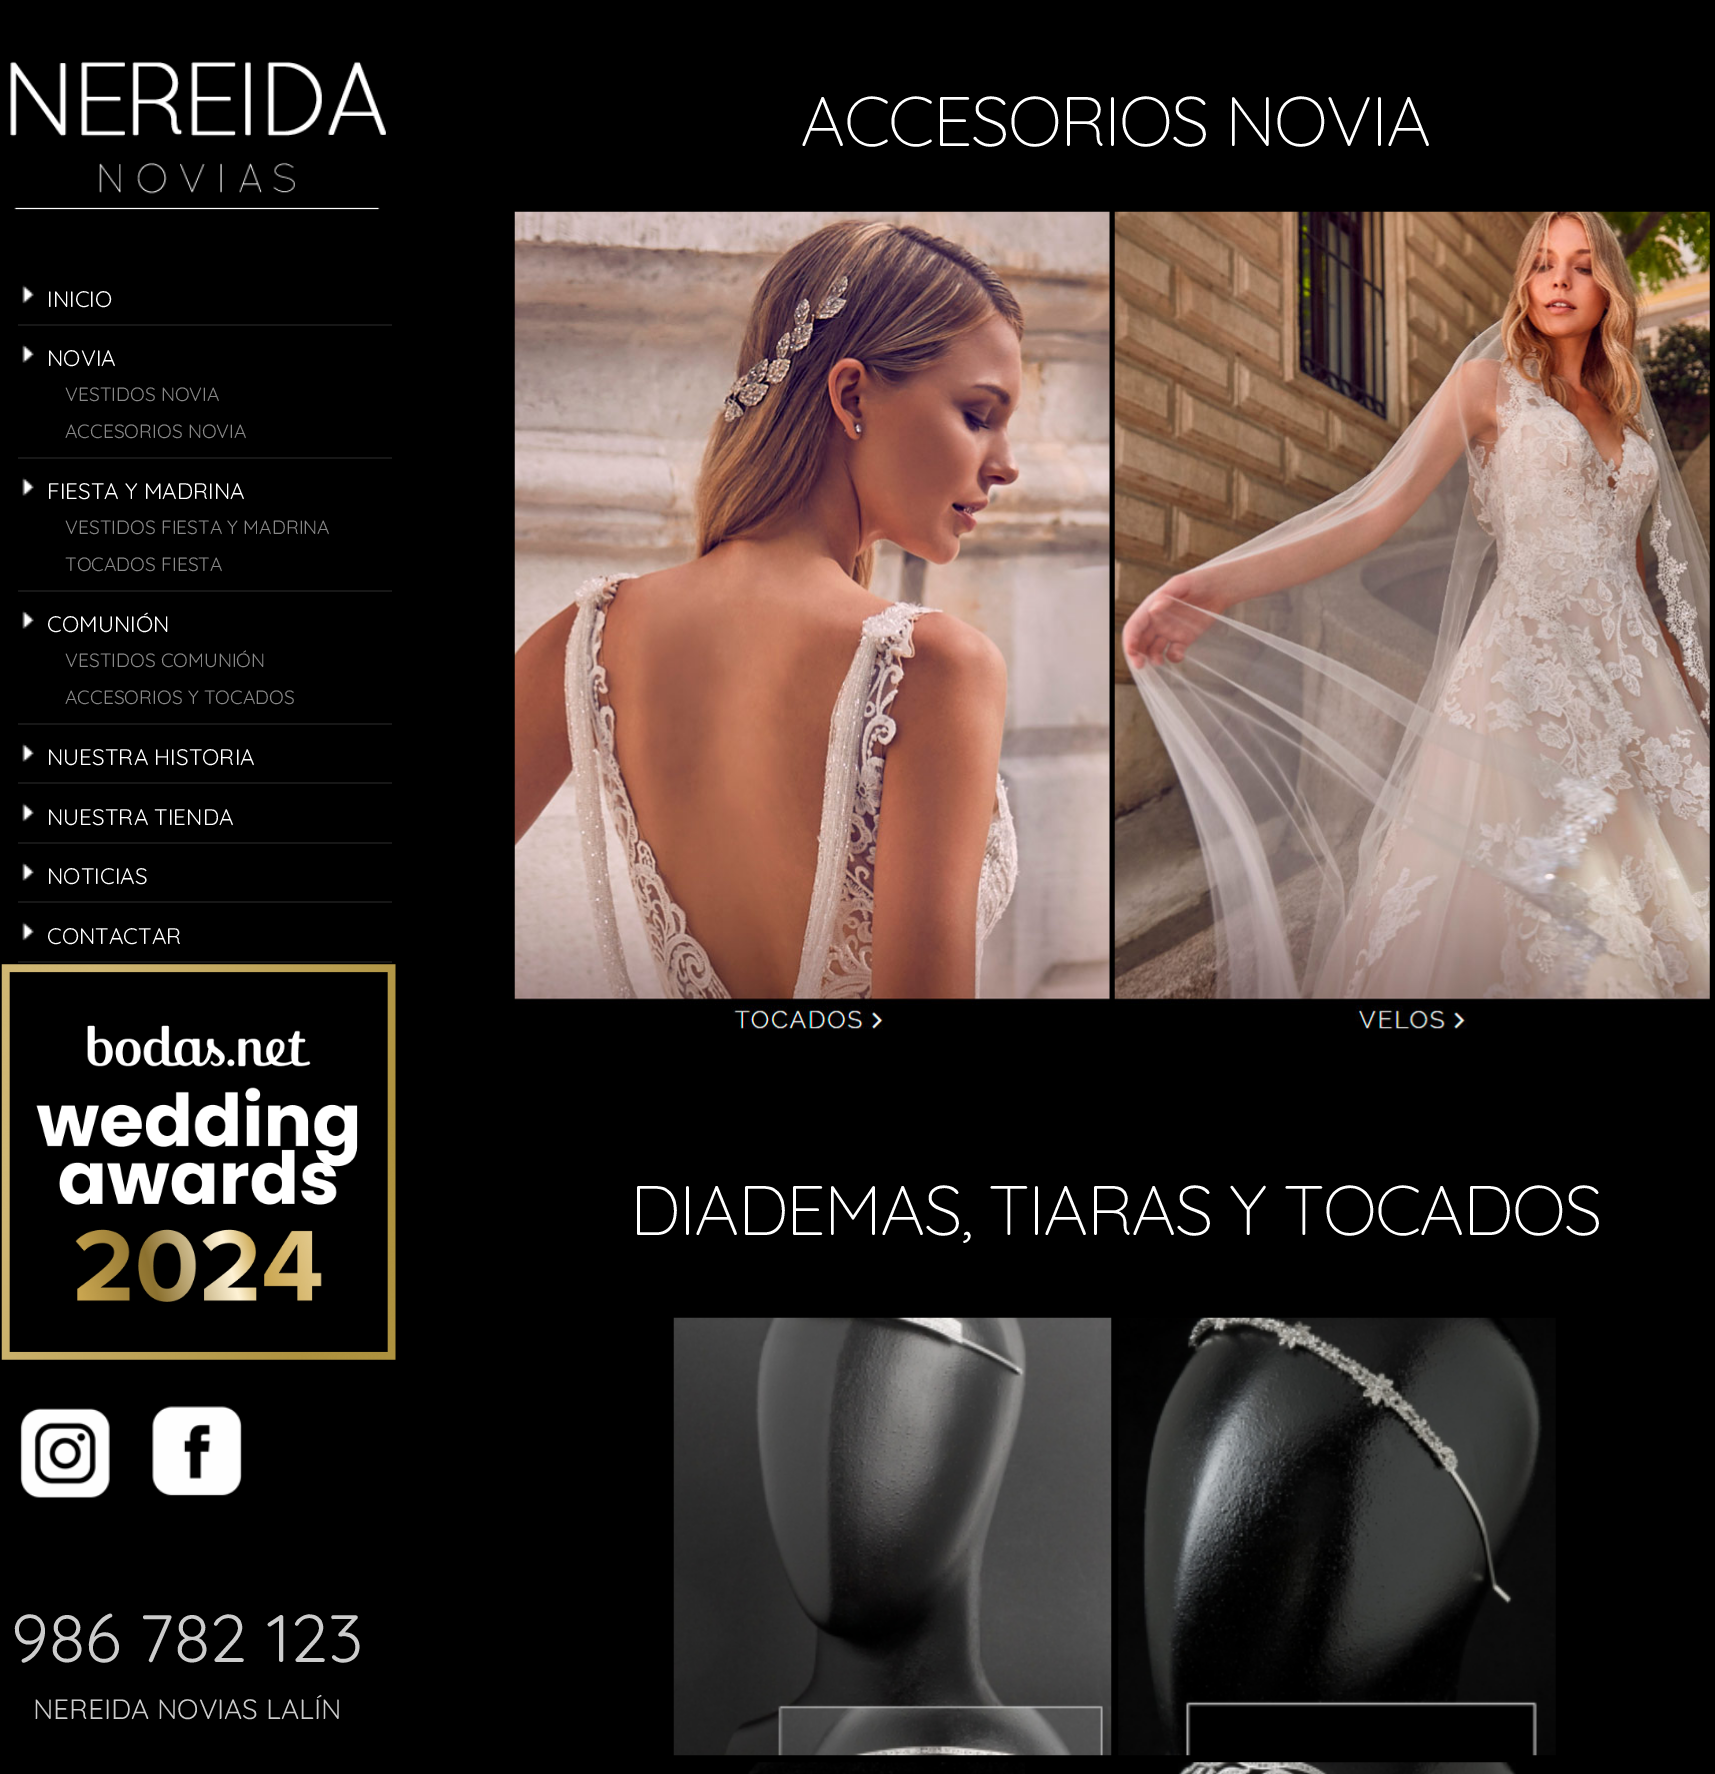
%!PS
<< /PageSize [1715 1774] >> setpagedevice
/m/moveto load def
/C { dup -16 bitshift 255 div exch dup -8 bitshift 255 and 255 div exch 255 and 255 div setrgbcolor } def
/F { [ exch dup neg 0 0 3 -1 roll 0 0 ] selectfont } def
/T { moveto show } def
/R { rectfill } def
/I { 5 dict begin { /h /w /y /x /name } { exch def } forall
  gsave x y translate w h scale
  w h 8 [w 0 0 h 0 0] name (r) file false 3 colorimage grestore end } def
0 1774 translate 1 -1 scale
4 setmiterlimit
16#000000 C
0 0 1715 1774 R
(1.rgb) 10 61 376 149 I
(2.rgb) 22 285 12 19 I
16#171717 C
18 324 374 2 R
/Quicksand-Regular 22.5 F
16#FFFFFF C
(INICIO) 47 307 T
(3.rgb) 22 344 12 19 I
16#171717 C
18 457 374 2 R
16#FFFFFF C
(NOVIA) 47 366 T
/Quicksand-Regular 19.25 F
16#888888 C
(VESTIDOS NOVIA) 65 401 T
(ACCESORIOS NOVIA) 65 438 T
(3.rgb) 22 477 12 19 I
16#171717 C
18 590 374 2 R
/Quicksand-Regular 22.5 F
16#FFFFFF C
(FIESTA Y MADRINA) 47 499 T
/Quicksand-Regular 19.25 F
16#888888 C
(VESTIDOS FIESTA Y MADRINA) 65 534 T
(TOCADOS FIESTA) 65 571 T
(3.rgb) 22 610 12 19 I
16#171717 C
18 723 374 2 R
/Quicksand-Regular 22.5 F
16#FFFFFF C
(COMUNIÓN) 47 632 T
/Quicksand-Regular 19.25 F
16#888888 C
(VESTIDOS COMUNIÓN) 65 667 T
(ACCESORIOS Y TOCADOS) 65 704 T
(3.rgb) 22 743 12 19 I
16#171717 C
18 782 374 2 R
/Quicksand-Regular 22.5 F
16#FFFFFF C
(NUESTRA HISTORIA) 47 765 T
(2.rgb) 22 803 12 19 I
16#171717 C
18 842 374 2 R
16#FFFFFF C
(NUESTRA TIENDA) 47 825 T
(3.rgb) 22 862 12 19 I
16#171717 C
18 901 374 2 R
16#FFFFFF C
(NOTICIAS) 47 884 T
(2.rgb) 22 922 12 19 I
16#171717 C
18 961 374 2 R
16#FFFFFF C
(CONTACTAR) 47 944 T
(4.rgb) 1 964 395 396 I
(5.rgb) 20 1408 90 90 I
(6.rgb) 152 1406 90 90 I
/Quicksand-Regular 67.25 F
16#CCCCCC C
(986 782 123) 11 1662 T
/Quicksand-Regular 28 F
(NEREIDA NOVIAS LALÍN) 33 1719 T
/Quicksand-Light 70 F
16#FFFFFF C
800 146 m -1.75 0 (ACCESORIOS NOVIA) ashow
(7.rgb) 514 211 596 819 I
(8.rgb) 1114 211 596 819 I
630 1235 m -1.75 0 (DIADEMAS, TIARAS Y TOCADOS) ashow
(9.rgb) 673 1317 439 439 I
(10.rgb) 1118 1317 438 439 I
(11.rgb) 748 1762 277 12 I
(12.rgb) 1178 1762 338 12 I
showpage
